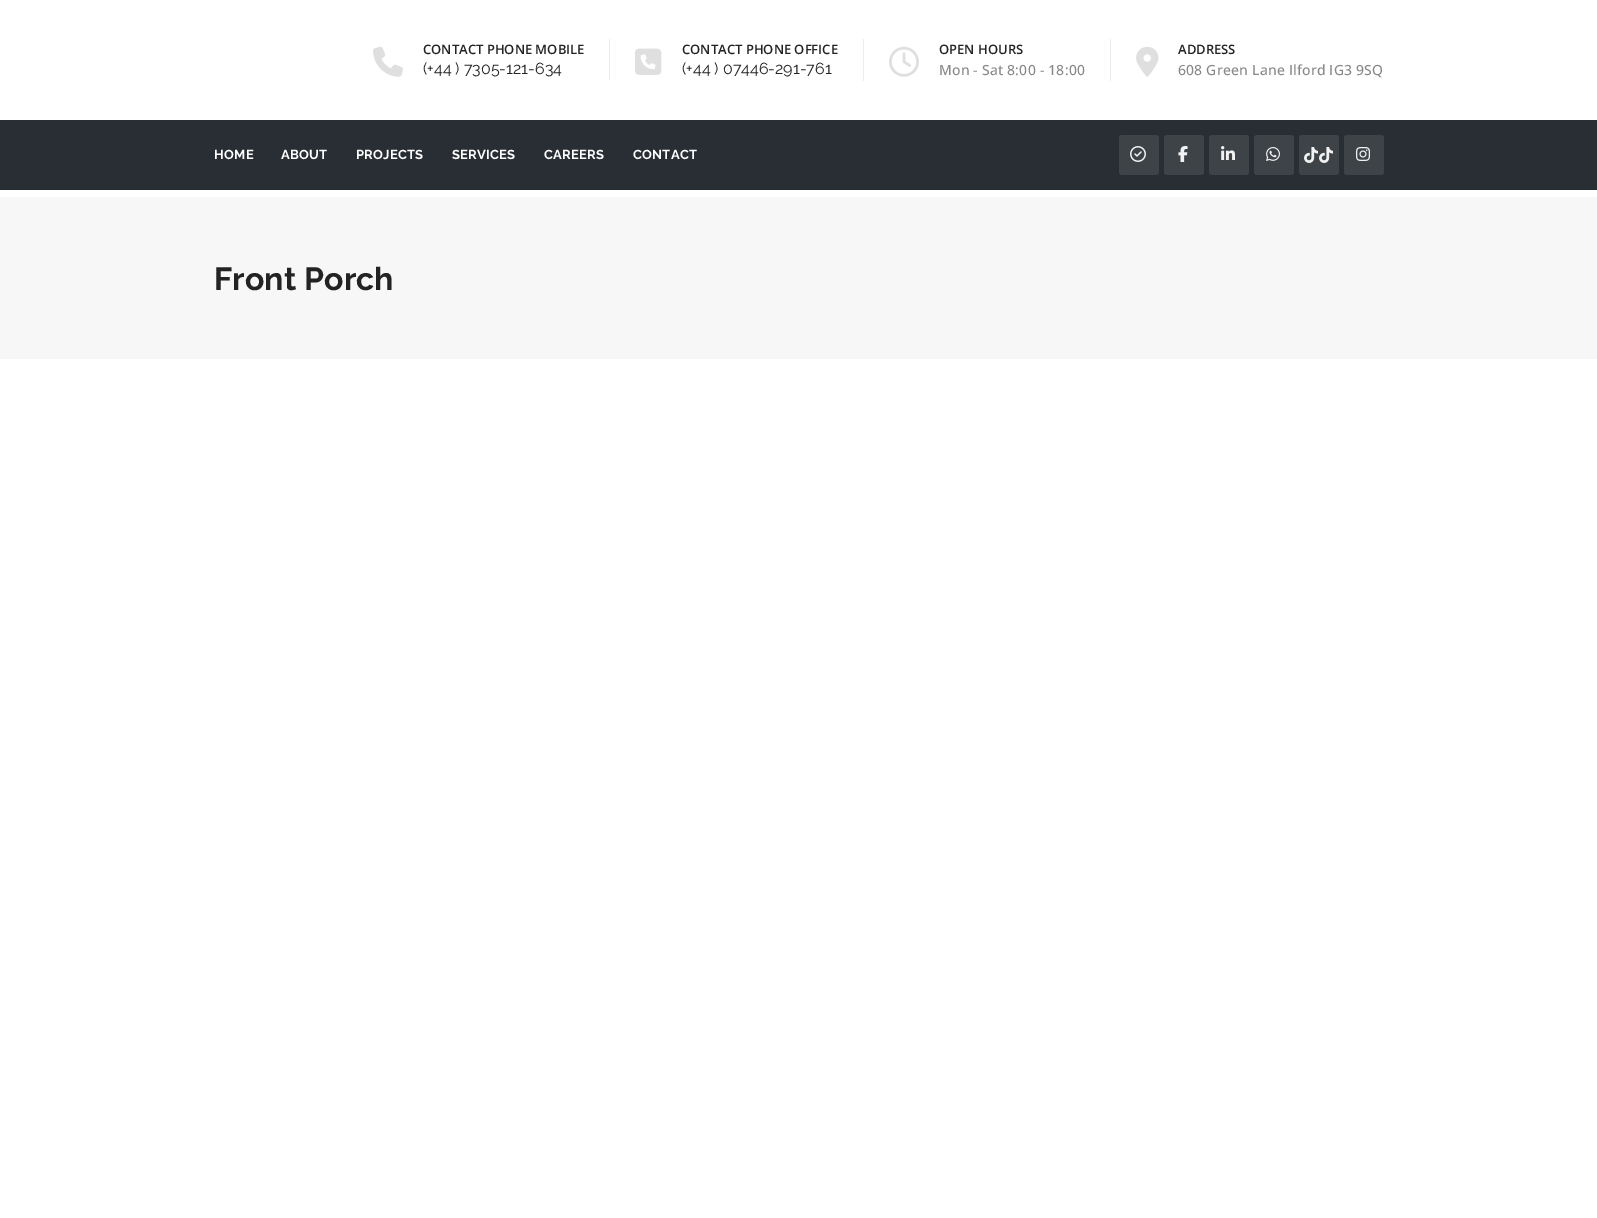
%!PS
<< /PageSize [1597 1218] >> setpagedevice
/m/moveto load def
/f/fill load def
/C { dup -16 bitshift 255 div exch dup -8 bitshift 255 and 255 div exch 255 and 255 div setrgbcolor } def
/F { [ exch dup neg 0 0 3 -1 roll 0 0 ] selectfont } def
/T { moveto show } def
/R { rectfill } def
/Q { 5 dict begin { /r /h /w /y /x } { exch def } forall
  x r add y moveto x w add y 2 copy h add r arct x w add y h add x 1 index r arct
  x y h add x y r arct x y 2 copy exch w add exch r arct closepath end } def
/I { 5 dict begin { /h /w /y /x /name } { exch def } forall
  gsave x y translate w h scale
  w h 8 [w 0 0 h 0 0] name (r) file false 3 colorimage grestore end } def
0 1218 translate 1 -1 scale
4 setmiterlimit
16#FFFFFF C
0 0 1597 1218 R
(1.rgb) 373 46 30 31 I
/OpenSans-SemiBold 13 F
16#232323 C
(CONTACT PHONE MOBILE) 423 54 T
/Raleway-Regular 16 F
(\(+44 \) 7305-121-634) 423 74 T
16#ECECEC C
609 39 1 41 R
(2.rgb) 635 48 27 27 I
/OpenSans-SemiBold 13 F
16#232323 C
(CONTACT PHONE OFFICE) 682 54 T
/Raleway-Regular 16 F
(\(+44 \) 07446-291-761) 682 74 T
16#ECECEC C
863 39 1 42 R
(3.rgb) 889 46 30 31 I
/OpenSans-SemiBold 13 F
16#232323 C
(OPEN HOURS) 939 54 T
/OpenSans-Medium 14 F
16#888888 C
939 75 m .2 0 (Mon - Sat 8:00 - 18:00) ashow
16#ECECEC C
1110 39 1 42 R
(4.rgb) 1136 46 23 31 I
/OpenSans-SemiBold 13 F
16#232323 C
(ADDRESS) 1178 54 T
/OpenSans-Medium 14 F
16#888888 C
1178 75 m .2 0 (608 Green Lane Ilford IG3 9SQ) ashow
16#292E34 C
0 120 1597 70 R
/Raleway-Bold 13 F
16#FFFFFF C
214 159 m .25 0 (HOME) ashow
281 159 m .25 0 (ABOUT) ashow
356 159 m .25 0 (PROJECTS) ashow
452 159 m .25 0 (SERVICES) ashow
544 159 m .25 0 (CAREERS) ashow
633 159 m .25 0 (CONTACT) ashow
16#3E4348 C
1119 135 40 40 3 Q f
(5.rgb) 1130 146 16 16 I
1164 135 40 40 3 Q f
(6.rgb) 1178 146 10 16 I
1209 135 40 40 3 Q f
(7.rgb) 1221 146 14 14 I
1254 135 40 40 3 Q f
(8.rgb) 1266 147 14 14 I
1299 135 40 40 3 Q f
(9.rgb) 1304 147 14 16 I
(9.rgb) 1319 147 14 16 I
1344 135 40 40 3 Q f
(10.rgb) 1356 147 14 14 I
16#F7F7F7 C
0 197 1597 162 R
/Raleway-Bold 32 F
16#232323 C
214 290 m .1 0 (Front Porch) ashow
showpage
